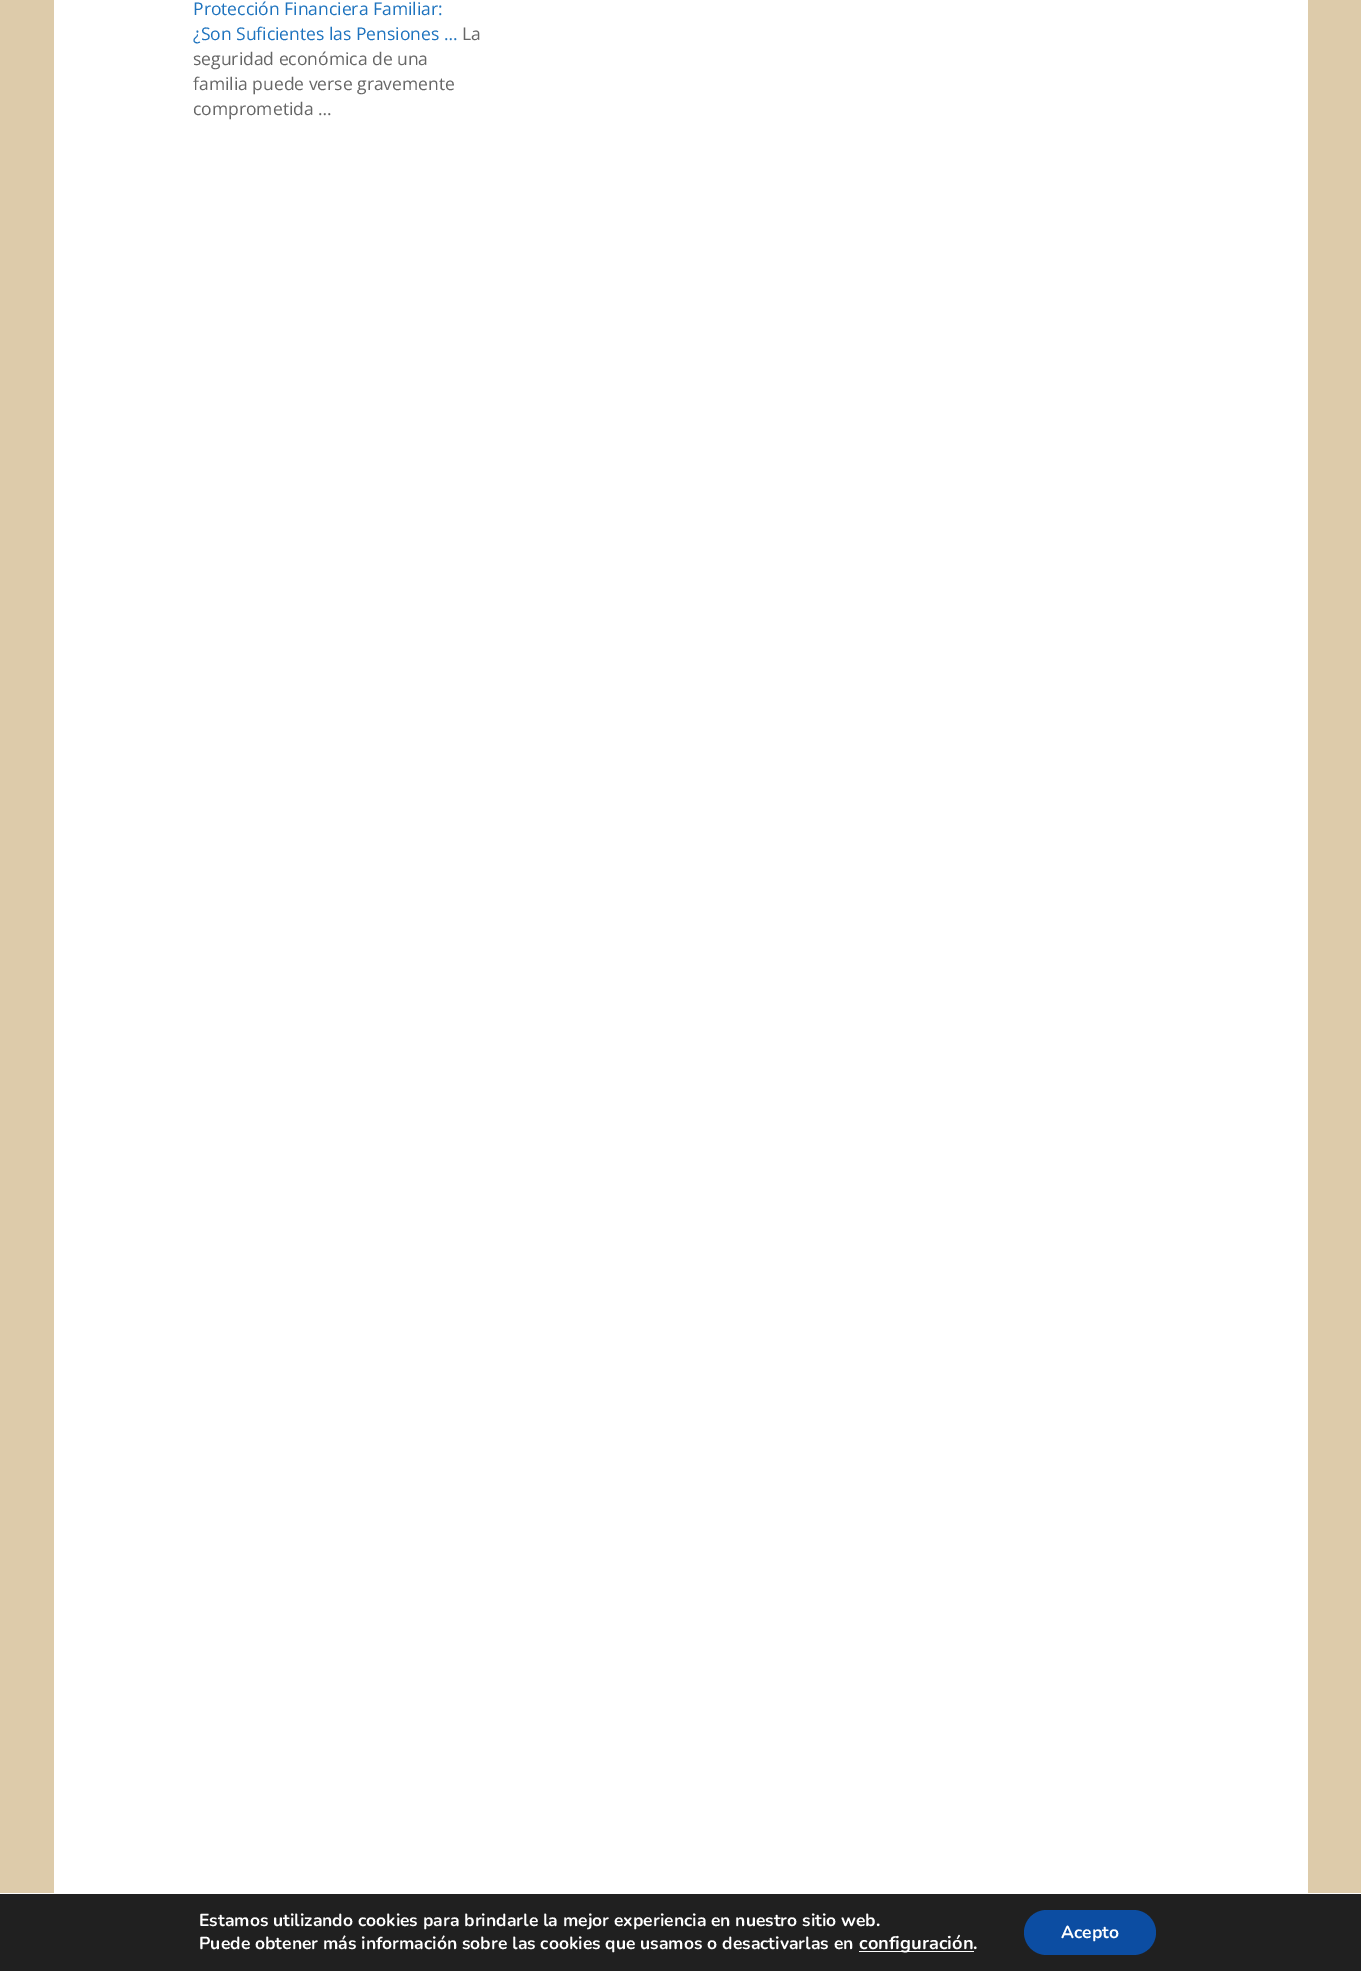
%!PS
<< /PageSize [1361 1971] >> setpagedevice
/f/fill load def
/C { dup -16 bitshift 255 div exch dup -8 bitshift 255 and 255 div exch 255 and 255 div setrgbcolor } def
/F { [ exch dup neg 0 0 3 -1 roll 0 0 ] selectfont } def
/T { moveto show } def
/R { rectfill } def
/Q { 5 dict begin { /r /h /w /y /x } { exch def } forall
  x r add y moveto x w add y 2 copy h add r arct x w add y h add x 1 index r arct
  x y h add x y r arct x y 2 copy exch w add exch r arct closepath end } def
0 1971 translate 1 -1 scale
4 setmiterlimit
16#DDCBAA C
0 0 1361 1971 R
16#FFFFFF C
54 0 1254 1893 R
/OpenSans-Regular 17.5 F
16#1E73BE C
(Protección Financiera Familiar:) 193 15 T
(¿Son Suficientes las Pensiones …) 193 40 T
16#666666 C
(La) 462 40 T
(seguridad económica de una) 193 65 T
(familia puede verse gravemente) 193 90 T
(comprometida …) 193 115 T
16#202020 C
0 1894 1361 77 R
16#FFFFFF C
0 1893 1361 1 R
/Nunito-Bold 17.5 F
(Estamos utilizando cookies para brindarle la mejor experiencia en nuestro sitio web.) 199 1926 T
(Puede obtener más información sobre las cookies que usamos o desactivarlas en) 199 1949 T
859 1951 115 1 R
/Nunito-Bold 18.25 F
(configuración.) 859 1949 T
16#0C4DA2 C
1024 1910 132 45 22.5 Q f
/Nunito-Bold 17.5 F
16#FFFFFF C
(Acepto) 1061 1938 T
showpage
